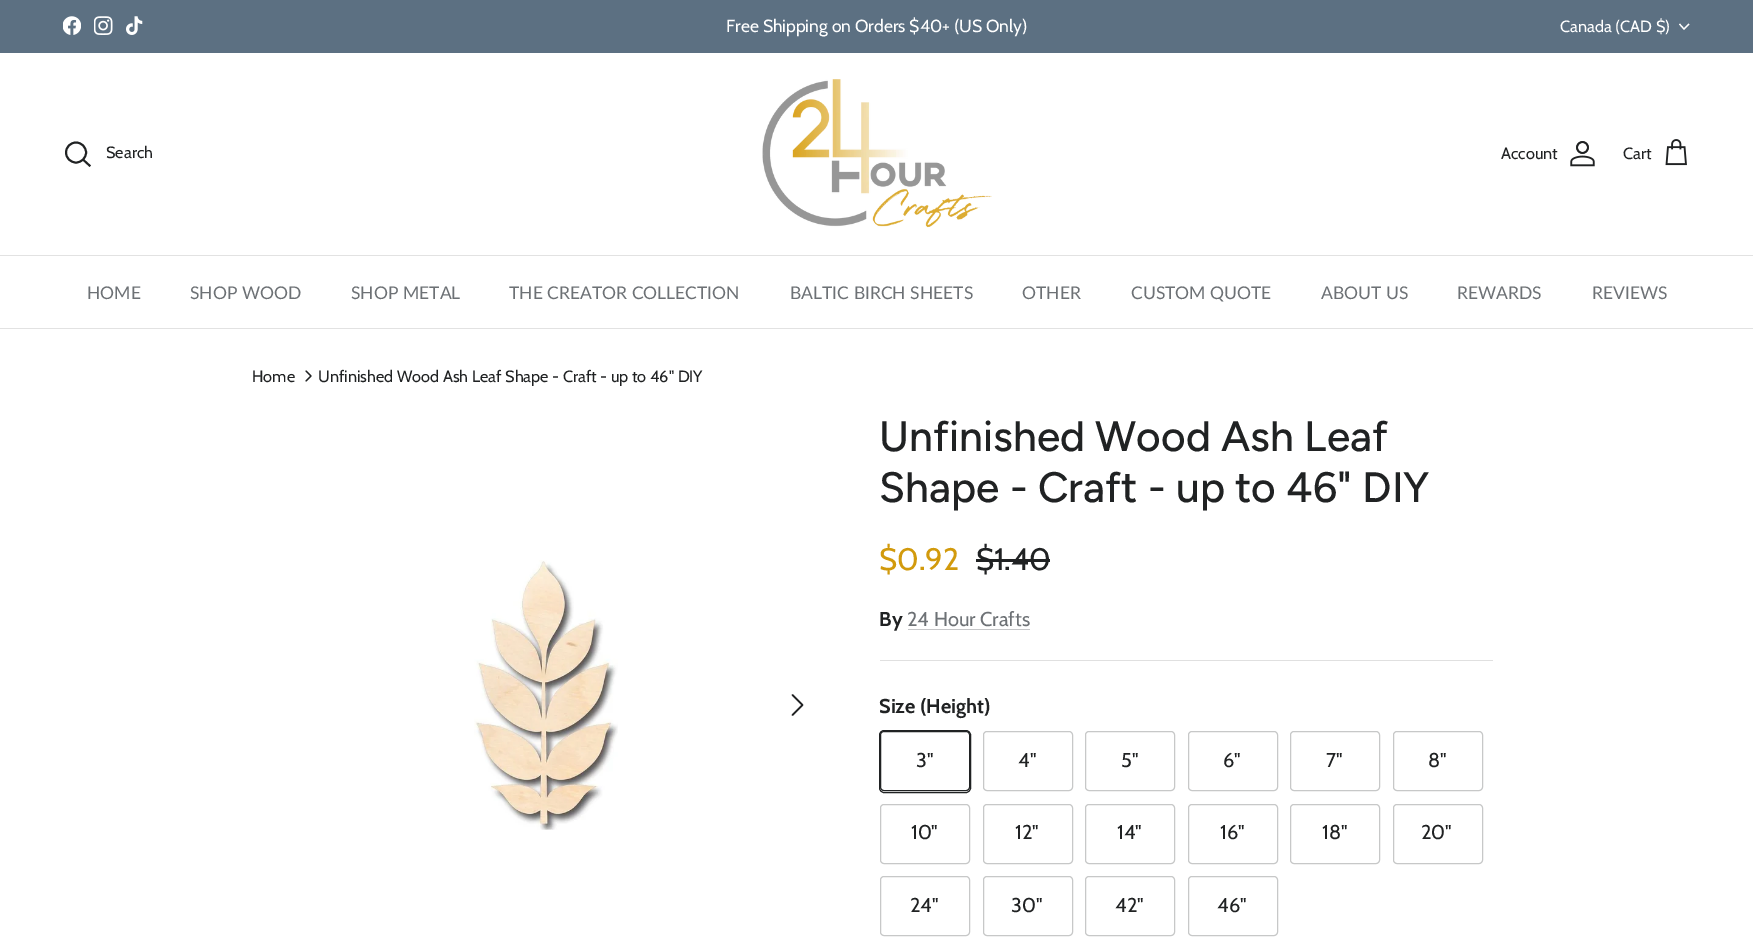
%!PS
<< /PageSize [1753 948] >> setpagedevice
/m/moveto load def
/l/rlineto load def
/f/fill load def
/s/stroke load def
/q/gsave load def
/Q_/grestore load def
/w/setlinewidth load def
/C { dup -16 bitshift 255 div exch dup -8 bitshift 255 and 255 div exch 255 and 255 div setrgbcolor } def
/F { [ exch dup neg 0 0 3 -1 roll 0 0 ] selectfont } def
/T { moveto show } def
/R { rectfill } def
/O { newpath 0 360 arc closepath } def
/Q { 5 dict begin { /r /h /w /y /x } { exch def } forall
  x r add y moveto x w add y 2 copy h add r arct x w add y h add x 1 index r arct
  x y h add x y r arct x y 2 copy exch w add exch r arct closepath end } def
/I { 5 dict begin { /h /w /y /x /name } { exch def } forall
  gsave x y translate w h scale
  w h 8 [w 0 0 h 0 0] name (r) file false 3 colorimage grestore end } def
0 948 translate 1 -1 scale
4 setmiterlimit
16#FFFFFF C
0 0 1753 948 R
16#5C7082 C
0 0 1753 53 R
(1.rgb) 63 16 18 19 I
(2.rgb) 94 16 19 19 I
(3.rgb) 126 16 17 19 I
/Cabin-Regular 17.5 F
16#FFFFFF C
(Free Shipping on Orders $40+ \(US Only\)) 726 32 T
/Cabin-Regular 16.25 F
(Canada \(CAD $\)) 1560 32 T
1.2 w
1689 24 m -5 5 l -4.5 -5 l s
16#E2E2E2 C
0 255 1753 1 R
16#202223 C
1.9 w
76 152.5 10 O s
(Search) 106 158 T
2 setlinecap
83.5 160 m 6 5.5 l s
(4.rgb) 762 79 230 149 I
(Account) 1501 159 T
(5.rgb) 1570 141 25 26 I
(Cart) 1623 159 T
(6.rgb) 1665 139 22 27 I
16#E2E2E2 C
0 328 1753 1 R
/Lato-Regular 17.5 F
16#6D7175 C
(HOME) 87 299 T
(SHOP WOOD) 190 299 T
(SHOP METAL) 351 299 T
(THE CREATOR COLLECTION) 509 299 T
(BALTIC BIRCH SHEETS) 790 299 T
(OTHER) 1022 299 T
(CUSTOM QUOTE) 1131 299 T
(ABOUT US) 1321 299 T
(REWARDS) 1457 299 T
(REVIEWS) 1592 299 T
/Cabin-Regular 16.25 F
16#202223 C
(Home) 252 382 T
1.2 w
1 setlinecap
1 setlinejoin
306 381 m 5 -5 l -5 -5 l s
(Unfinished Wood Ash Leaf Shape - Craft - up to 46" DIY) 318 382 T
(7.rgb) 474 560 144 270 I
1.7 w
792.5 715 m 10 -10 l -10 -10 l s
/Figtree-Medium 42.5 F
(Unfinished Wood Ash Leaf) 879 451 T
(Shape - Craft - up to 46" DIY) 879 502 T
/Cabin-Regular 31 F
16#D29A0C C
($0.92) 879 570 T
16#202223 C
($1.40) 976 570 T
976 559 74 3 R
/Cabin-Bold 20 F
(By) 879 626 T
/Cabin-Regular 20 F
16#6D7175 C
(24 Hour Crafts) 907 626 T
16#C5C6C8 C
908 629 122 1 R
16#E0E0E0 C
880 660 613 1 R
/Cabin-Bold 20 F
16#202223 C
(Size \(Height\)) 879 713 T
1 w
0 setlinecap
0 setlinejoin
879.5 730.5 91 62 4.5 Q s
16#FFFFFF C
880.5 731.5 89 59 3.5 Q q f Q_
16#202223 C
s
/Cabin-Regular 20 F
(3") 916 767 T
16#C7C8C8 C
983.5 731.5 89 59 3.5 Q s
16#202223 C
(4") 1018 767 T
16#C7C8C8 C
1085.5 731.5 89 59 3.5 Q s
16#202223 C
(5") 1121 767 T
16#C7C8C8 C
1188.5 731.5 89 59 3.5 Q s
16#202223 C
(6") 1223 767 T
16#C7C8C8 C
1290.5 731.5 89 59 3.5 Q s
16#202223 C
(7") 1326 767 T
16#C7C8C8 C
1393.5 731.5 89 59 3.5 Q s
16#202223 C
(8") 1428 767 T
16#C7C8C8 C
880.5 804.5 89 59 3.5 Q s
16#202223 C
(10") 911 839 T
16#C7C8C8 C
983.5 804.5 89 59 3.5 Q s
16#202223 C
(12") 1015 839 T
16#C7C8C8 C
1085.5 804.5 89 59 3.5 Q s
16#202223 C
(14") 1117 839 T
16#C7C8C8 C
1188.5 804.5 89 59 3.5 Q s
16#202223 C
(16") 1220 839 T
16#C7C8C8 C
1290.5 804.5 89 59 3.5 Q s
16#202223 C
(18") 1322 839 T
16#C7C8C8 C
1393.5 804.5 89 59 3.5 Q s
16#202223 C
(20") 1421 839 T
16#C7C8C8 C
880.5 876.5 89 59 3.5 Q s
16#202223 C
(24") 910 912 T
16#C7C8C8 C
983.5 876.5 89 59 3.5 Q s
16#202223 C
(30") 1011 912 T
16#C7C8C8 C
1085.5 876.5 89 59 3.5 Q s
16#202223 C
(42") 1115 912 T
16#C7C8C8 C
1188.5 876.5 89 59 3.5 Q s
16#202223 C
(46") 1217 912 T
showpage
